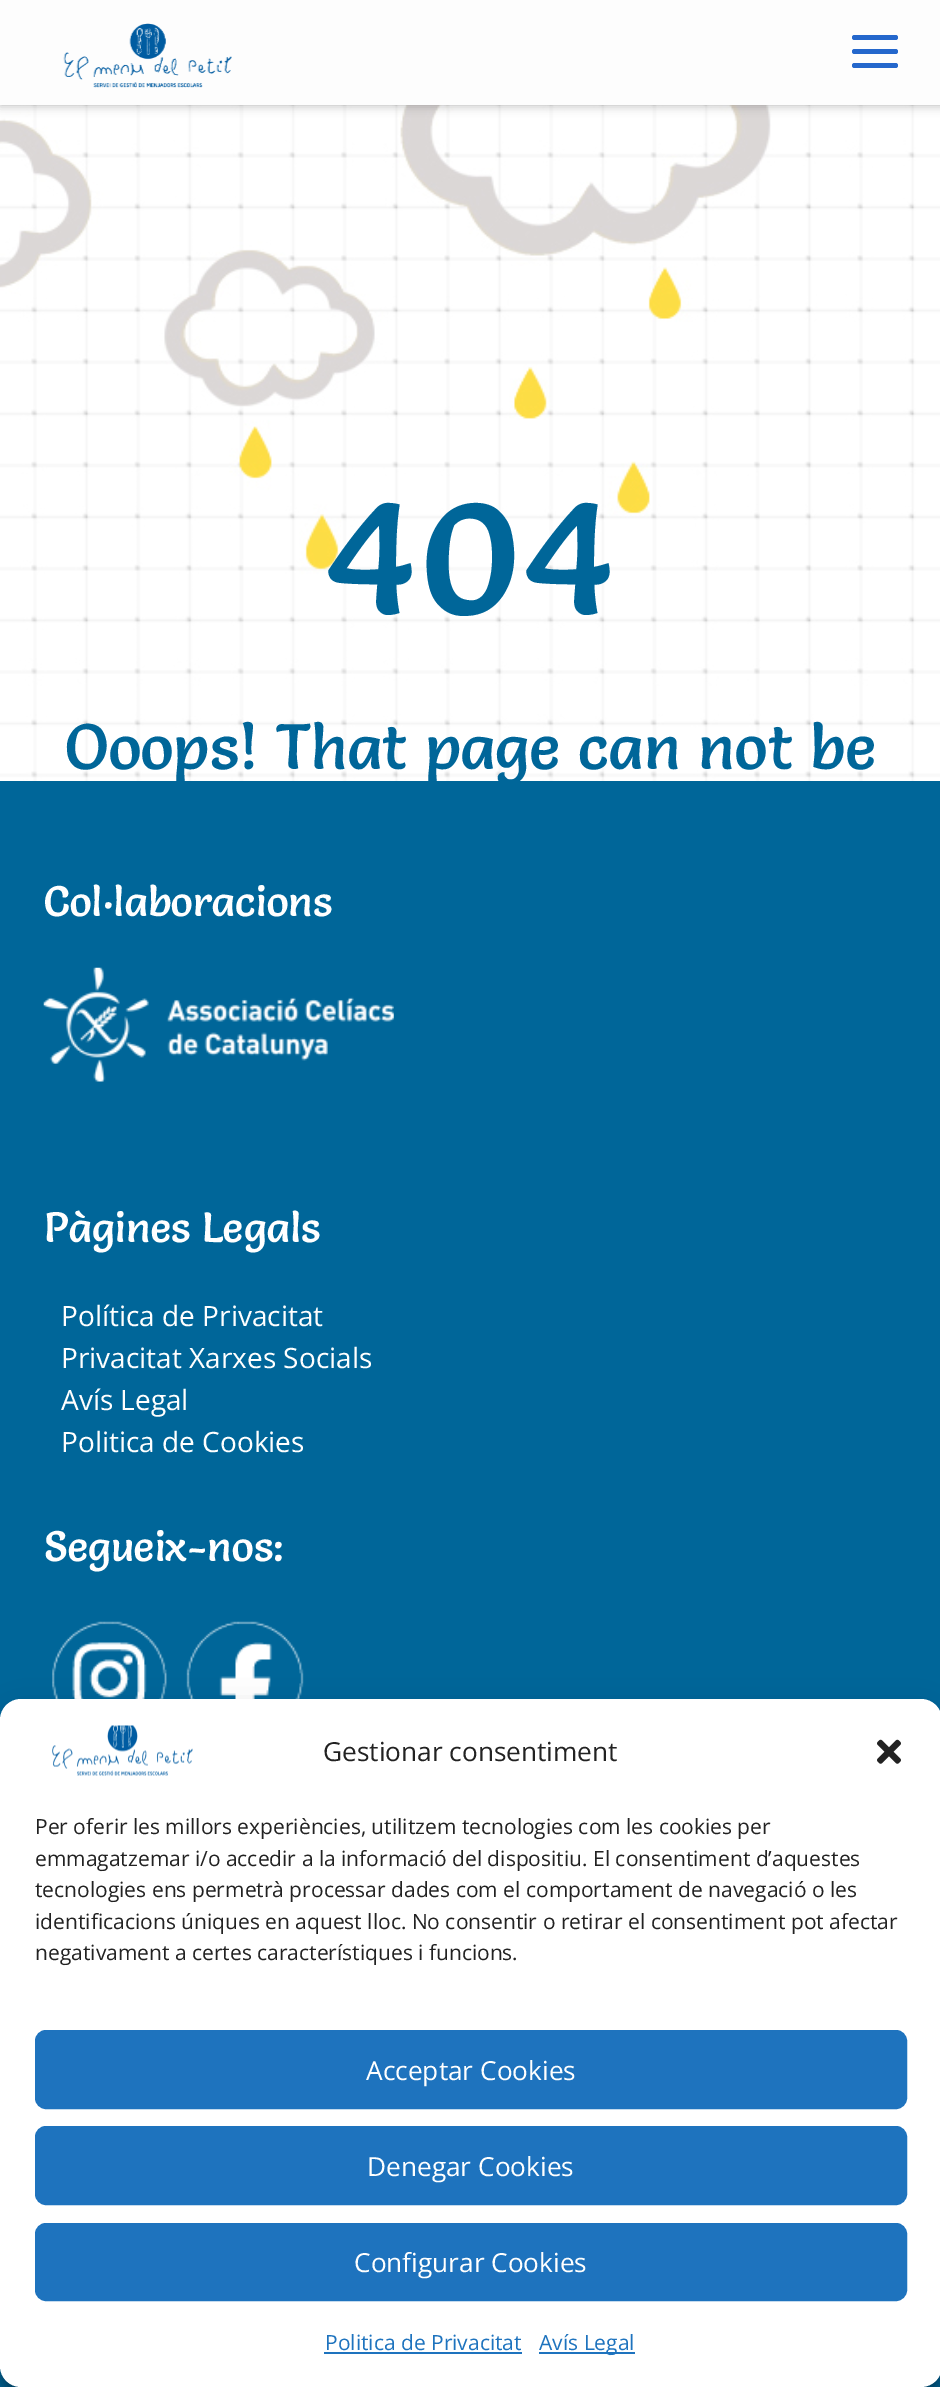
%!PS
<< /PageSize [940 2387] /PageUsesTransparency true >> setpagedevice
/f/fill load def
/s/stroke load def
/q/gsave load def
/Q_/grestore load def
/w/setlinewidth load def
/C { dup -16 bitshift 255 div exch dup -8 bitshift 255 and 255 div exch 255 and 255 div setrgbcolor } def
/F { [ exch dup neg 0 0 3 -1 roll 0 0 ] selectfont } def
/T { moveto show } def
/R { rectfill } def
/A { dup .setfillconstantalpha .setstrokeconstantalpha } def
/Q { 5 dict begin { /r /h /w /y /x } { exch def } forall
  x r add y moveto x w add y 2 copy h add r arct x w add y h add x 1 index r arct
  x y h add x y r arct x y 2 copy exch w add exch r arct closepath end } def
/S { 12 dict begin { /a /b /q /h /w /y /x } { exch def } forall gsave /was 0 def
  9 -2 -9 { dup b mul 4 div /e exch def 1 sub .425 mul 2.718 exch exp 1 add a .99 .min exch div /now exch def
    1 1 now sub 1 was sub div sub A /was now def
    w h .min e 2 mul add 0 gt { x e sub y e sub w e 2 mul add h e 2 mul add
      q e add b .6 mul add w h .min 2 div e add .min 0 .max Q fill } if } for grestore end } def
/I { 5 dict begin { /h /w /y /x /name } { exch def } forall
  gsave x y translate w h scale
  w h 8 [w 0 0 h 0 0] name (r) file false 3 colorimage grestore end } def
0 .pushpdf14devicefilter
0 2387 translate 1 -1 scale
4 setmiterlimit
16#FFFFFF C
0 0 940 2387 R
(1.rgb) 0 105 940 676 I
16#000000 C
0 2 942 105 0 4.5 .2 S
16#FDFDFD C
0 0 940 105 R
(2.rgb) 63 23 169 65 I
16#2467CC C
852 35 46 5 2.5 Q f
852 49 46 5 2.5 Q f
852 63 46 5 2.5 Q f
/Salsa-Regular 168 F
16#006699 C
(404) 324 614 T
/Salsa-Regular 63 F
(Ooops! That page can not be) 65 769 T
0 781 940 939 R
/Salsa-Regular 42 F
16#FFFFFF C
(Col·laboracions) 44 916 T
(3.rgb) 43 967 351 115 I
(Pàgines Legals) 44 1242 T
/OpenSans-Regular 28 F
(Política de Privacitat) 61 1326 T
(Privacitat Xarxes Socials) 61 1368 T
(Avís Legal) 61 1410 T
(Politica de Cookies) 61 1452 T
/Salsa-Regular 42 F
(Segueix-nos:) 44 1561 T
(4.rgb) 52 1621 115 78 I
(5.rgb) 186 1621 118 78 I
16#006699 C
0 2366 940 21 R
16#000000 C
0 1710 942 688 21 5 .23 S
0 1717 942 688 21 17.5 .19 S
16#FFFFFF C
0 1699 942 688 21 Q f
(6.rgb) 52 1725 141 51 I
/OpenSans-Regular 26.25 F
16#222222 C
(Gestionar consentiment) 323 1761 T
(7.rgb) 877 1739 24 25 I
/OpenSans-Regular 21 F
(Per oferir les millors experiències, utilitzem tecnologies com les cookies per) 35 1834 T
(emmagatzemar i/o accedir a la informació del dispositiu. El consentiment d’aquestes) 35 1866 T
(tecnologies ens permetrà processar dades com el comportament de navegació o les) 35 1897 T
(identificacions úniques en aquest lloc. No consentir o retirar el consentiment pot afectar) 35 1929 T
(negativament a certes característiques i funcions.) 35 1960 T
16#1E73BE C
36 2031 870 77 10 Q q f Q_
2 w
s
/OpenSans-Regular 26.25 F
16#FFFFFF C
(Acceptar Cookies) 366 2080 T
16#1E73BE C
36 2127 870 77 10 Q q f Q_
s
16#FFFFFF C
(Denegar Cookies) 367 2176 T
16#1E73BE C
36 2224 870 76 10 Q q f Q_
s
16#FFFFFF C
(Configurar Cookies) 354 2272 T
/OpenSans-Regular 21 F
16#1E73BE C
(Politica de Privacitat) 325 2350 T
324 2352 198 2 R
539 2352 96 2 R
(Avís Legal) 539 2350 T
.poppdf14devicefilter showpage
